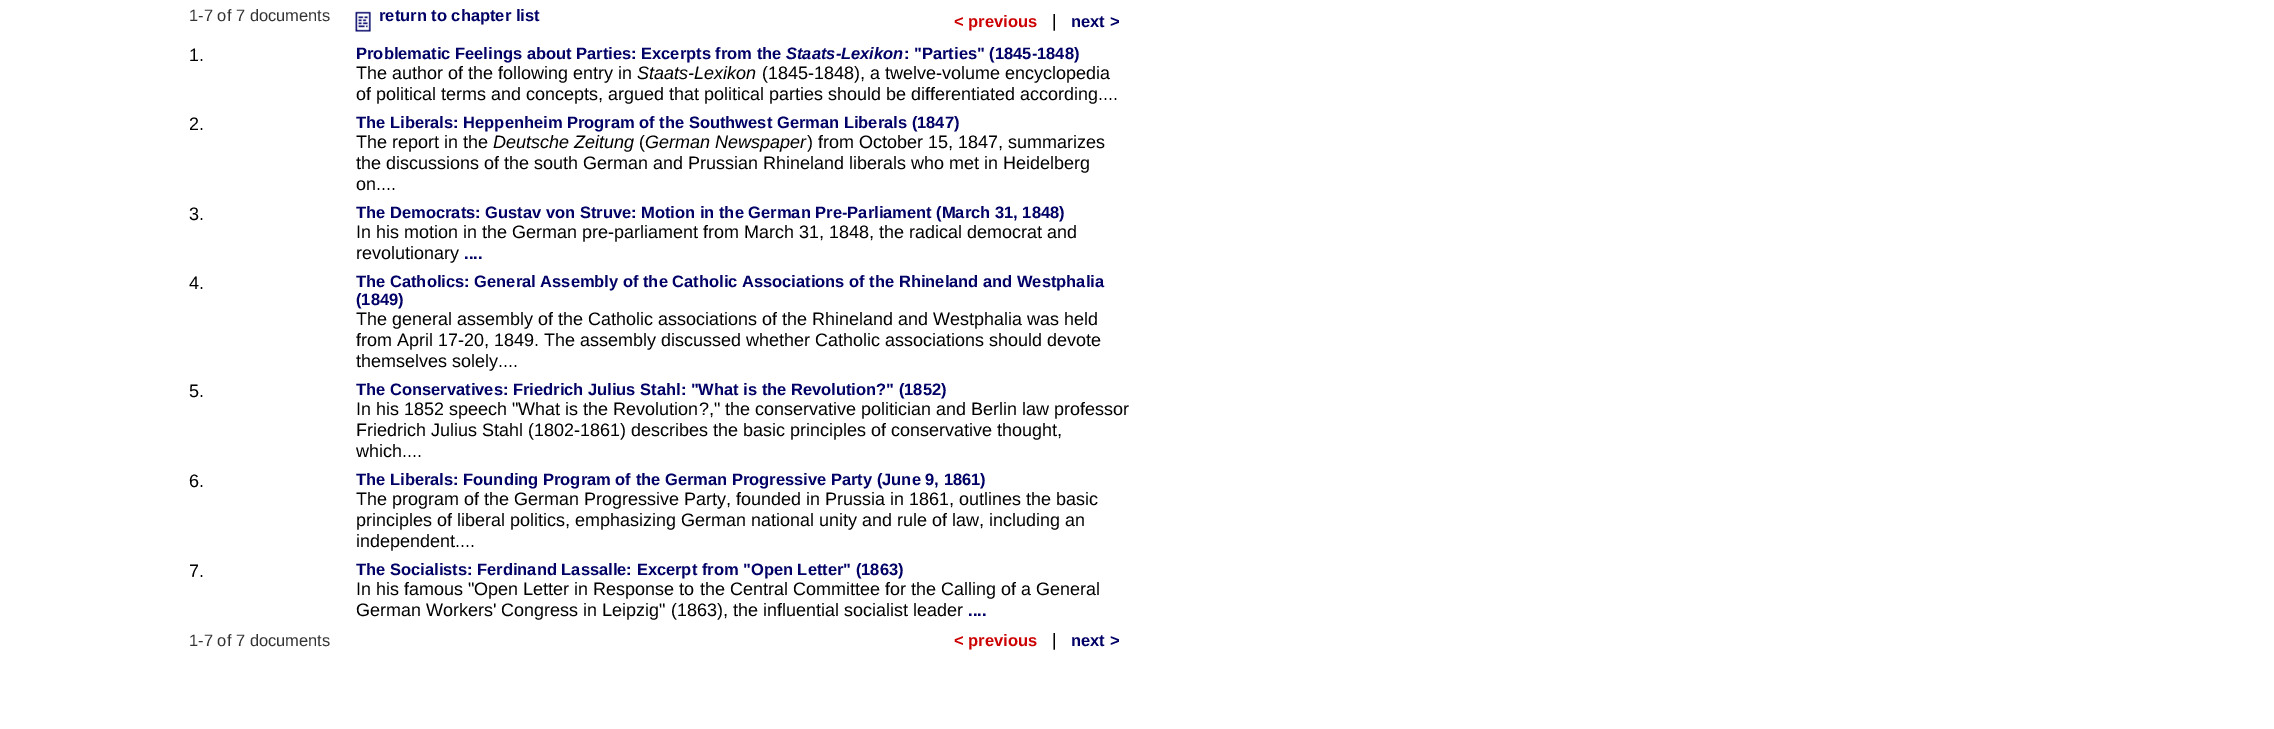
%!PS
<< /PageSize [2274 729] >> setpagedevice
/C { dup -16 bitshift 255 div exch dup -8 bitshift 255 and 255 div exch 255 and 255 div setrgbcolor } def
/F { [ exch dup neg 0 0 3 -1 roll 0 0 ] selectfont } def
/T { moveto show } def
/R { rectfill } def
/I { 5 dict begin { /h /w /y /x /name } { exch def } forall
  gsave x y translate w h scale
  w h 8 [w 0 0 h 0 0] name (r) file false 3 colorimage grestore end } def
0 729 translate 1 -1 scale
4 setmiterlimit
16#FFFFFF C
0 0 2274 729 R
/LiberationSans-Regular 16.5 F
16#333333 C
(1-7 of 7 documents) 189 21 T
(1.rgb) 355 11 16 21 I
/LiberationSans-Bold 16.5 F
16#000066 C
(return to chapter list) 379 21 T
16#CC0000 C
(< previous) 954 27 T
/LiberationSans-Regular 18 F
16#000000 C
(|) 1052 27 T
/LiberationSans-Bold 16.5 F
16#000066 C
(next >) 1071 27 T
/LiberationSans-Regular 18 F
16#000000 C
(1.) 189 61 T
/LiberationSans-Bold 16.5 F
16#000066 C
(Problematic Feelings about Parties: Excerpts from the) 356 59 T
/LiberationSans-BoldItalic 16.5 F
(Staats-Lexikon) 786 59 T
/LiberationSans-Bold 16.5 F
(: "Parties" \(1845-1848\)) 904 59 T
/LiberationSans-Regular 18 F
16#000000 C
(The author of the following entry in) 356 79 T
/LiberationSans-Italic 18 F
(Staats-Lexikon) 637 79 T
/LiberationSans-Regular 18 F
(\(1845-1848\), a twelve-volume encyclopedia) 762 79 T
(of political terms and concepts, argued that political parties should be differentiated according....) 356 100 T
(2.) 189 130 T
/LiberationSans-Bold 16.5 F
16#000066 C
(The Liberals: Heppenheim Program of the Southwest German Liberals \(1847\)) 356 128 T
/LiberationSans-Regular 18 F
16#000000 C
(The report in the) 356 148 T
/LiberationSans-Italic 18 F
(Deutsche Zeitung) 493 148 T
/LiberationSans-Regular 18 F
(\() 639 148 T
/LiberationSans-Italic 18 F
(German Newspaper) 645 148 T
/LiberationSans-Regular 18 F
(\) from October 15, 1847, summarizes) 807 148 T
(the discussions of the south German and Prussian Rhineland liberals who met in Heidelberg) 356 169 T
(on....) 356 190 T
(3.) 189 220 T
/LiberationSans-Bold 16.5 F
16#000066 C
(The Democrats: Gustav von Struve: Motion in the German Pre-Parliament \(March 31, 1848\)) 356 218 T
/LiberationSans-Regular 18 F
16#000000 C
(In his motion in the German pre-parliament from March 31, 1848, the radical democrat and) 356 238 T
(revolutionary) 356 259 T
/LiberationSans-Bold 16.5 F
16#000066 C
(....) 464 259 T
/LiberationSans-Regular 18 F
16#000000 C
(4.) 189 289 T
/LiberationSans-Bold 16.5 F
16#000066 C
(The Catholics: General Assembly of the Catholic Associations of the Rhineland and Westphalia) 356 287 T
(\(1849\)) 356 305 T
/LiberationSans-Regular 18 F
16#000000 C
(The general assembly of the Catholic associations of the Rhineland and Westphalia was held) 356 325 T
(from April 17-20, 1849. The assembly discussed whether Catholic associations should devote) 356 346 T
(themselves solely....) 356 367 T
(5.) 189 397 T
/LiberationSans-Bold 16.5 F
16#000066 C
(The Conservatives: Friedrich Julius Stahl: "What is the Revolution?" \(1852\)) 356 395 T
/LiberationSans-Regular 18 F
16#000000 C
(In his 1852 speech "What is the Revolution?," the conservative politician and Berlin law professor) 356 415 T
(Friedrich Julius Stahl \(1802-1861\) describes the basic principles of conservative thought,) 356 436 T
(which....) 356 457 T
(6.) 189 487 T
/LiberationSans-Bold 16.5 F
16#000066 C
(The Liberals: Founding Program of the German Progressive Party \(June 9, 1861\)) 356 485 T
/LiberationSans-Regular 18 F
16#000000 C
(The program of the German Progressive Party, founded in Prussia in 1861, outlines the basic) 356 505 T
(principles of liberal politics, emphasizing German national unity and rule of law, including an) 356 526 T
(independent....) 356 547 T
(7.) 189 577 T
/LiberationSans-Bold 16.5 F
16#000066 C
(The Socialists: Ferdinand Lassalle: Excerpt from "Open Letter" \(1863\)) 356 575 T
/LiberationSans-Regular 18 F
16#000000 C
(In his famous "Open Letter in Response to the Central Committee for the Calling of a General) 356 595 T
(German Workers' Congress in Leipzig" \(1863\), the influential socialist leader) 356 616 T
/LiberationSans-Bold 16.5 F
16#000066 C
(....) 968 616 T
/LiberationSans-Regular 16.5 F
16#333333 C
(1-7 of 7 documents) 189 646 T
/LiberationSans-Bold 16.5 F
16#CC0000 C
(< previous) 954 646 T
/LiberationSans-Regular 18 F
16#000000 C
(|) 1052 646 T
/LiberationSans-Bold 16.5 F
16#000066 C
(next >) 1071 646 T
showpage
